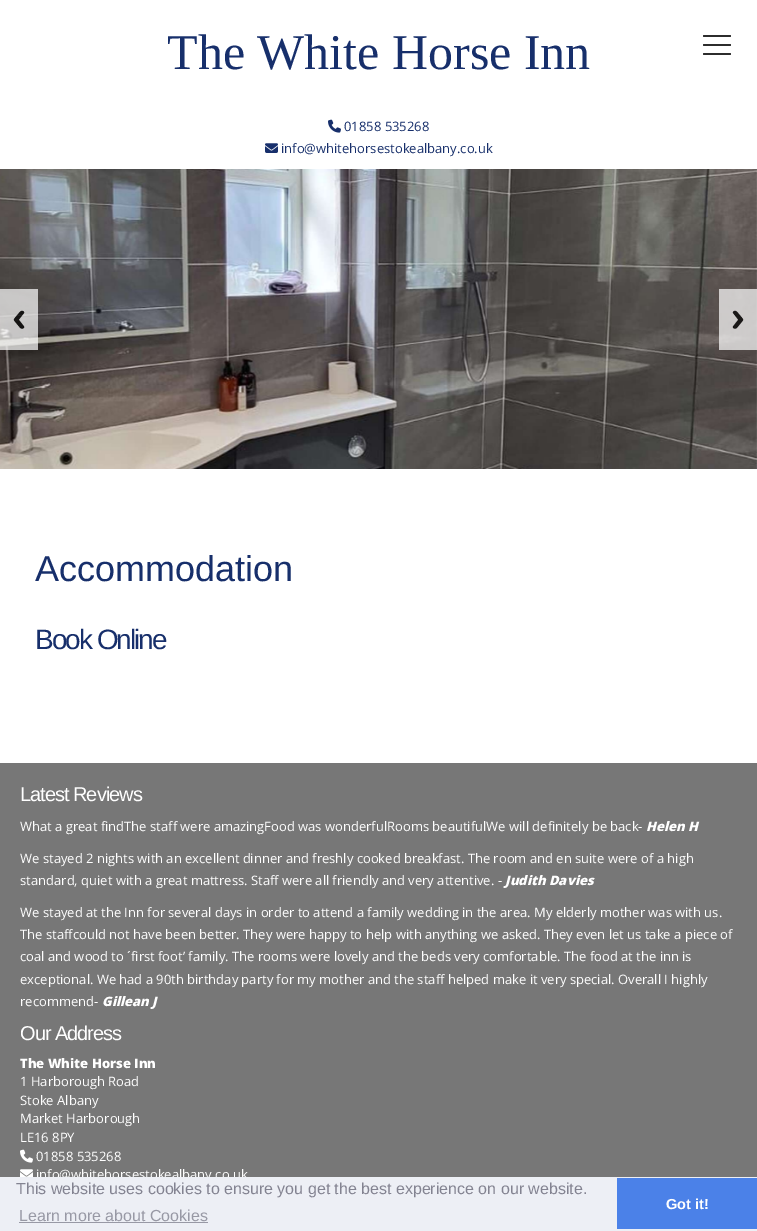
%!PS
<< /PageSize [757 1231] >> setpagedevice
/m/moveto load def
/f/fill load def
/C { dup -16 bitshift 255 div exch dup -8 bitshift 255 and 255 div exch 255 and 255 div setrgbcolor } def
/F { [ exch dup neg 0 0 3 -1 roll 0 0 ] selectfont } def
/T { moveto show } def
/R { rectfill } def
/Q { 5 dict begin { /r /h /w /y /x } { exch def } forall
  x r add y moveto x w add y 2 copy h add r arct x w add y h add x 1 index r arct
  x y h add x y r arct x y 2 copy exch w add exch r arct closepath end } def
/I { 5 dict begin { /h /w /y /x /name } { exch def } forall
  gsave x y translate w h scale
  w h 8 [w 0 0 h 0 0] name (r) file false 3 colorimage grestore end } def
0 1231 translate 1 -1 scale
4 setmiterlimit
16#FFFFFF C
0 0 757 1231 R
/LiberationSerif-Regular 50 F
16#172F6B C
(The White Horse Inn) 167 69 T
16#2C2C2C C
703 35 28 2 1 Q f
703 44 28 2 1 Q f
703 53 28 2 1 Q f
(1.rgb) 328 119 13 14 I
/OpenSans-Regular 13 F
16#172F6B C
(01858 535268) 344 131 T
(2.rgb) 265 143 13 10 I
(info@whitehorsestokealbany.co.uk) 281 153 T
(3.rgb) 0 169 757 300 I
(4.rgb) 0 289 38 61 I
(5.rgb) 719 289 38 61 I
/LiberationSans-Regular 36 F
(Accommodation) 35 581 T
/LiberationSans-Regular 28 F
35 649 m -2 0 (Book Online) ashow
16#777777 C
0 763 757 414 R
/LiberationSans-Regular 20 F
16#FFFFFF C
20 801 m -1 0 (Latest Reviews) ashow
/OpenSans-Regular 13 F
(What a great findThe staff were amazingFood was wonderfulRooms beautifulWe will definitely be back-) 20 831 T
/OpenSans-ExtraBoldItalic 13 F
(Helen H) 646 831 T
/OpenSans-Regular 13 F
(We stayed 2 nights with an excellent dinner and freshly cooked breakfast. The room and en suite were of a high) 20 863 T
(standard, quiet with a great mattress. Staff were all friendly and very attentive. -) 20 885 T
/OpenSans-ExtraBoldItalic 13 F
(Judith Davies) 505 885 T
/OpenSans-Regular 13 F
(We stayed at the Inn for several days in order to attend a family wedding in the area. My elderly mother was with us.) 20 917 T
(The staffcould not have been better. They were happy to help with anything we asked. They even let us take a piece of) 20 939 T
(coal and wood to ´first foot’ family. The rooms were lovely and the beds very comfortable. The food at the inn is) 20 961 T
(exceptional. We had a 90th birthday party for my mother and the staff helped make it very special. Overall I highly) 20 984 T
(recommend-) 20 1006 T
/OpenSans-ExtraBoldItalic 13 F
(Gillean J) 102 1006 T
/LiberationSans-Regular 20 F
20 1040 m -1 0 (Our Address) ashow
/OpenSans-ExtraBold 13 F
(The White Horse Inn) 20 1068 T
/OpenSans-Regular 13 F
(1 Harborough Road) 20 1086 T
(Stoke Albany) 20 1105 T
(Market Harborough) 20 1123 T
(LE16 8PY) 20 1142 T
(6.rgb) 20 1149 13 14 I
(01858 535268) 36 1161 T
(7.rgb) 20 1169 13 8 I
(info@whitehorsestokealbany.co.uk) 36 1179 T
16#EDEFF5 C
0 1177 757 54 R
/LiberationSans-Regular 16 F
16#838391 C
(This website uses cookies to ensure you get the best experience on our website.) 16 1194 T
16#9899A5 C
(Learn more about Cookies) 19 1221 T
19 1222 189 1 R
16#4B81E8 C
617 1178 140 51 R
/LiberationSans-Bold 14.5 F
16#FFFFFF C
(Got it!) 666 1209 T
showpage
